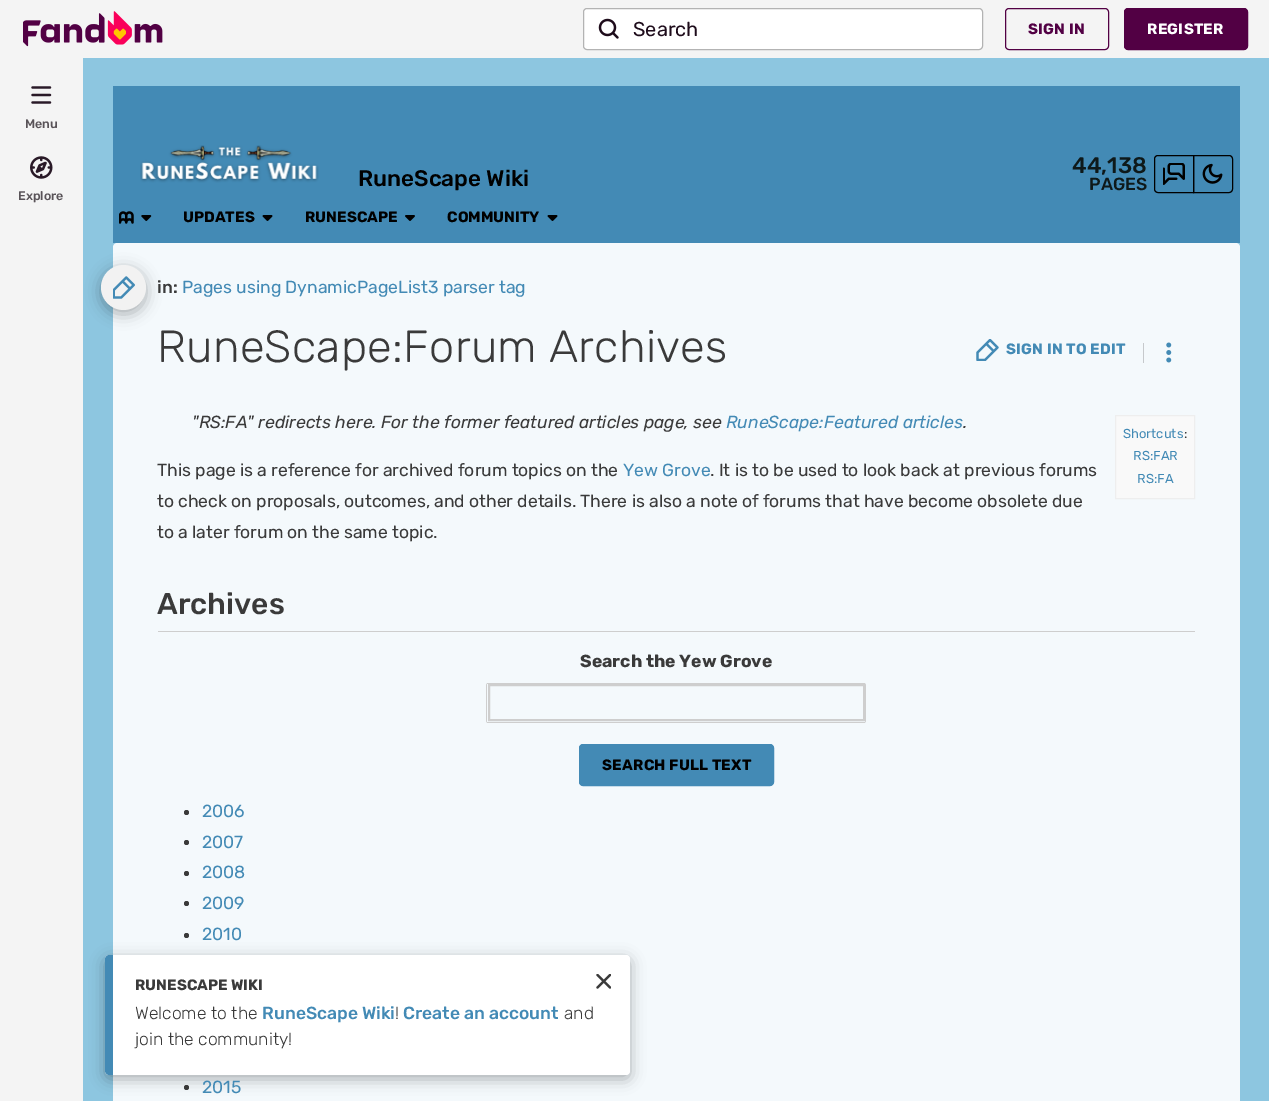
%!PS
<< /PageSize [1269 1101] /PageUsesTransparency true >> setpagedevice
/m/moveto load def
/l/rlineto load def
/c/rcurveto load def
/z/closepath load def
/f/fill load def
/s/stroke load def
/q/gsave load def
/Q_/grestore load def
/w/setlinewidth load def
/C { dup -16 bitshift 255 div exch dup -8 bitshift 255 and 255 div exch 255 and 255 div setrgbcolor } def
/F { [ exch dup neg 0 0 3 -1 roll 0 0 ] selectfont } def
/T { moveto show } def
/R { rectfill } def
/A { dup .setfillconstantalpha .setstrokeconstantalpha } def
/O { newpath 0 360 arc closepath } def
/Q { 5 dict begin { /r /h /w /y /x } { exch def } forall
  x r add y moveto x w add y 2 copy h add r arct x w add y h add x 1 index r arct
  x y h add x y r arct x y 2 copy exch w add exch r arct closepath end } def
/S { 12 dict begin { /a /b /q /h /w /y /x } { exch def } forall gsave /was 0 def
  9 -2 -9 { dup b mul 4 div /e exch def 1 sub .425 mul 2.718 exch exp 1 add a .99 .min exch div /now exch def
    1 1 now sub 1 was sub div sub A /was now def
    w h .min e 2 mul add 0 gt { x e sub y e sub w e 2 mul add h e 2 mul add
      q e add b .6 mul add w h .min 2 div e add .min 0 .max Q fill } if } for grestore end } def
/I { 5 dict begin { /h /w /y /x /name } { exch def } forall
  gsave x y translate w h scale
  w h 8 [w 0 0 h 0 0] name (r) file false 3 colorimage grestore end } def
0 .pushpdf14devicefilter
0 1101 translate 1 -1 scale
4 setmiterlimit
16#8DC6E0 C
0 0 1269 1101 R
16#F4F4F4 C
0 0 1269 58 R
(1.rgb) 23 11 140 36 I
16#FFFFFF C
583.5 8.5 399 41 3.5 Q q f Q_
16#B3B3B3 C
s
(2.rgb) 598 18 21 21 I
/Rubik-Regular 20 F
16#1E0C1B C
(Search) 633 36 T
16#520044 C
1005.5 8.5 103 41 3.5 Q s
/Rubik-Bold 15 F
1028 34 m .25 0 (SIGN IN) ashow
1124.5 8.5 123 41 3.5 Q q f Q_
s
16#FFFFFF C
1147 34 m .25 0 (REGISTER) ashow
16#F4F9FC C
117 243 m 1119 0 l 2 0 4 2 4 4 c 0 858 l -1127 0 l 0 -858 l 0 -2 2 -4 4 -4 c z f
16#000000 C
101 269 45 45 22.5 7.5 .3 S
16#3A3A3A C
186.5 935.5 2.5 O f
186.5 1087.5 2.5 O f
16#000000 C
105 959 525 120 4 7.5 .3 S
16#F4F4F4 C
0 58 83 1043 R
(3.rgb) 31 86 21 18 I
/Rubik-Medium 12.5 F
16#595358 C
(Menu) 25 128 T
(4.rgb) 30 156 23 23 I
(Explore) 18 200 T
16#438AB5 C
113 86 1127 157 R
(5.rgb) 140 145 179 38 I
/Rubik-Medium 22.5 F
16#000000 C
(RuneScape Wiki) 358 186 T
16#0E191A C
(44,138) 1072 173 T
/Rubik-Medium 17.5 F
(PAGES) 1089 190 T
16#000000 C
1158 155.5 m 35.5 0 l 0 37 l -35.5 0 l -2 0 -3.5 -1.5 -3.5 -3.5 c 0 -30 l 0 -2 1.5 -3.5 3.5 -3.5 c z s
(6.rgb) 1163 163 22 22 I
1193.5 155.5 m 35.5 0 l 2 0 3.5 1.5 3.5 3.5 c 0 30 l 0 2 -1.5 3.5 -3.5 3.5 c -35.5 0 l z s
(7.rgb) 1202 163 21 21 I
(8.rgb) 119 211 15 13 I
(9.rgb) 141 215 11 6 I
/Rubik-Bold 15 F
(UPDATES) 183 222 T
(10.rgb) 262 215 11 6 I
(RUNESCAPE) 305 222 T
(11.rgb) 405 215 10 6 I
(COMMUNITY) 447 222 T
(10.rgb) 547 215 11 6 I
16#F2F2F2 C
123.5 287.5 22.5 O f
(12.rgb) 113 276 22 23 I
/Rubik-Medium 17.5 F
16#3A3A3A C
(in:) 157 293 T
/Rubik-Regular 17.5 F
16#438AB5 C
(Pages using DynamicPageList3 parser tag) 182 293 T
/Rubik-Light 45 F
16#3A3A3A C
157 362 m .3 0 (RuneScape:Forum Archives) ashow
(13.rgb) 976 339 23 22 I
/Rubik-Bold 15 F
16#438AB5 C
1006 354 m .25 0 (SIGN IN TO EDIT) ashow
16#C6C9CC C
1143 343 1 20 R
(14.rgb) 1166 342 6 21 I
/Rubik-Italic 17.5 F
16#3A3A3A C
("RS:FA" redirects here. For the former featured articles page, see) 192 428 T
16#438AB5 C
(RuneScape:Featured articles) 726 428 T
16#3A3A3A C
(.) 963 428 T
16#F9F9F9 C
1115.5 415.5 m 79 0 l 0 83 l -79 0 l z q f Q_
16#EEEEEE C
s
/Rubik-Regular 13 F
16#438AB5 C
(Shortcuts) 1123 438 T
16#3A3A3A C
(:) 1184 438 T
16#438AB5 C
(RS:FAR) 1133 460 T
(RS:FA) 1137 483 T
/Rubik-Regular 17.5 F
16#3A3A3A C
(This page is a reference for archived forum topics on the) 157 476 T
16#438AB5 C
(Yew Grove) 623 476 T
16#3A3A3A C
(. It is to be used to look back at previous forums) 710 476 T
(to check on proposals, outcomes, and other details. There is also a note of forums that have become obsolete due) 157 507 T
(to a later forum on the same topic.) 157 538 T
16#CECECE C
158 631 1037 1 R
/Rubik-Medium 30 F
16#3A3A3A C
(Archives) 157 614 T
/Rubik-Bold 17.5 F
(Search the Yew Grove) 580 667 T
16#CECECE C
2 w
489 685 375 35 rectstroke
488 683 m -1 0 -2 1 -2 3 c 0 34 l 0 2 1 3 2 3 c 376 0 l 1 0 2 -1 2 -3 c 0 -34 l 0 -2 -1 -3 -2 -3 c z 487 684 m 0 38 l 378 0 l 0 -38 l z eofill
16#438AB5 C
579.5 744.5 194 41 3.5 Q q f Q_
1 w
s
/Rubik-Bold 15 F
16#000000 C
602 770 m .25 0 (SEARCH FULL TEXT) ashow
16#3A3A3A C
186.5 812.5 2.5 O f
/Rubik-Regular 17.5 F
16#438AB5 C
(2006) 202 817 T
16#3A3A3A C
186.5 842.5 2.5 O f
16#438AB5 C
(2007) 202 848 T
16#3A3A3A C
186.5 873.5 2.5 O f
16#438AB5 C
(2008) 202 878 T
16#3A3A3A C
186.5 903.5 2.5 O f
16#438AB5 C
(2009) 202 909 T
(2010) 202 940 T
(2015) 202 1093 T
16#FFFFFF C
105 955 525 120 4 Q f
16#438AB5 C
109 955 m 4 0 l 0 120 l -4 0 l -2 0 -4 -2 -4 -4 c 0 -112 l 0 -2 2 -4 4 -4 c z f
/Rubik-Bold 15 F
16#3A3A3A C
(RUNESCAPE WIKI) 135 990 T
(15.rgb) 596 974 15 15 I
/Rubik-Light 17.5 F
(Welcome to the) 135 1019 T
/Rubik-Medium 17.5 F
16#438AB5 C
(RuneScape Wiki) 262 1019 T
/Rubik-Light 17.5 F
16#3A3A3A C
(!) 395 1019 T
/Rubik-Medium 17.5 F
16#438AB5 C
(Create an account) 403 1019 T
/Rubik-Light 17.5 F
16#3A3A3A C
(and) 564 1019 T
(join the community!) 135 1045 T
.poppdf14devicefilter showpage
